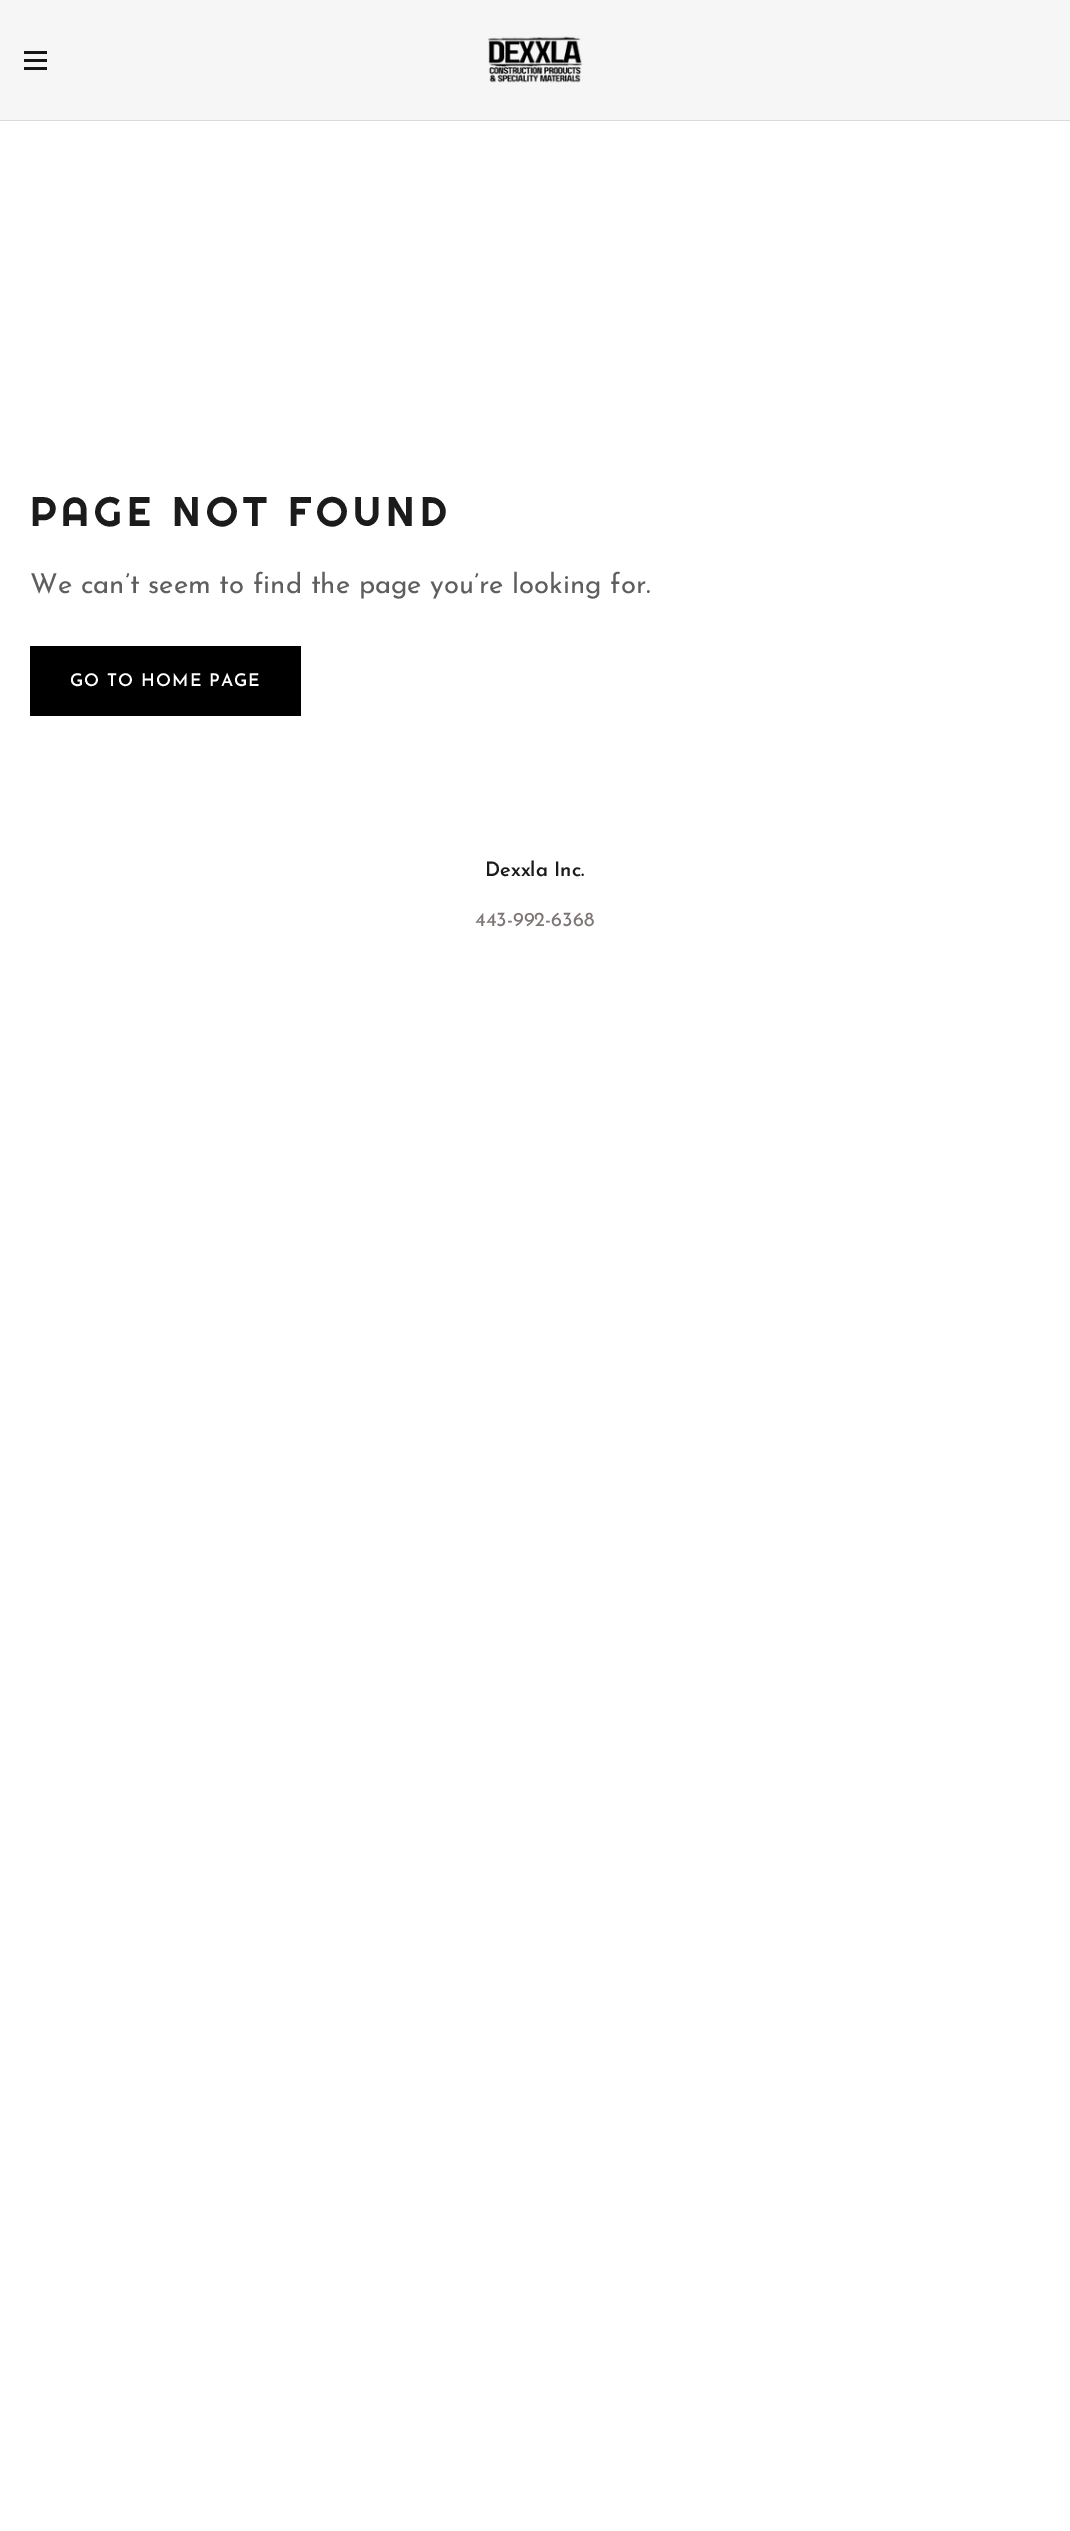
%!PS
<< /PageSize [1070 2531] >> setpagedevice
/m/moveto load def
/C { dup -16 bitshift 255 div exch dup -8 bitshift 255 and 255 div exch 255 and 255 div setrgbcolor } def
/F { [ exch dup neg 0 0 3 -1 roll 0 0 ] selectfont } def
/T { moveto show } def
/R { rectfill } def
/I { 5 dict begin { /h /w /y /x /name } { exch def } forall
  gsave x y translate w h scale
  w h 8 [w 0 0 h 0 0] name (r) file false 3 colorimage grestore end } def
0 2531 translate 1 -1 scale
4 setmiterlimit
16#FFFFFF C
0 0 1070 2531 R
16#F6F6F6 C
0 0 1070 120 R
16#151515 C
24 51 23 3 R
24 59 23 3 R
24 67 23 3 R
(1.rgb) 488 36 95 47 I
16#DADADA C
0 120 1070 1 R
/Righteous-Regular 41.25 F
16#1B1B1B C
30 526 m 5 0 (PAGE NOT FOUND) ashow
/JosefinSans-Regular 27.5 F
16#5E5E5E C
(We can’t seem to find the page you’re looking for.) 30 593 T
16#000000 C
30 646 271 70 R
/JosefinSans-SemiBold 17.5 F
16#FFFFFF C
70 686 m 1.1 0 (GO TO HOME PAGE) ashow
/JosefinSans-SemiBold 20 F
16#1B1B1B C
(Dexxla Inc.) 485 876 T
/JosefinSans-Regular 20 F
16#7D7474 C
(443-992-6368) 475 926 T
showpage
